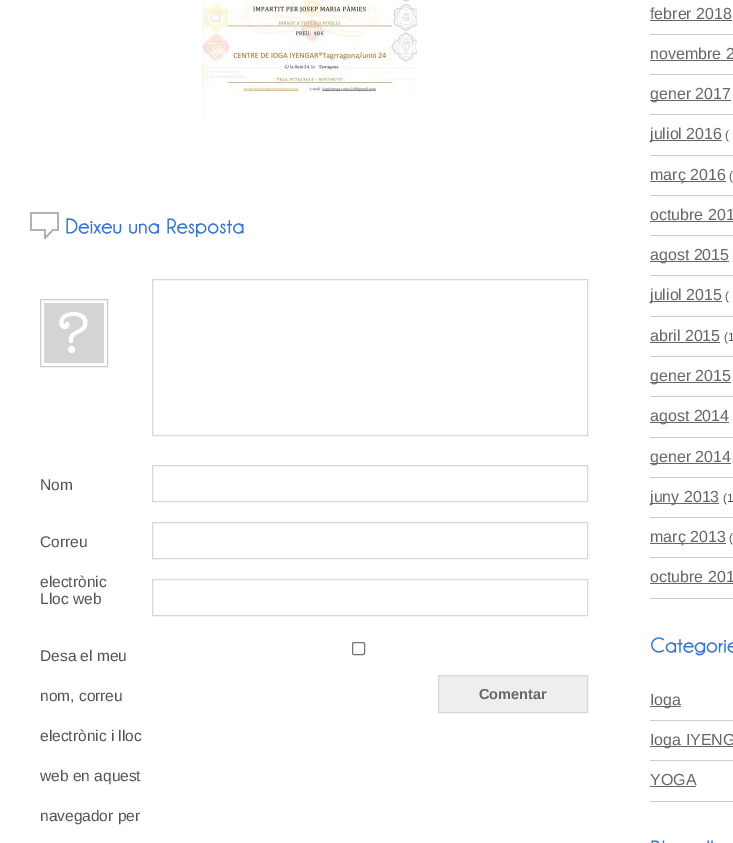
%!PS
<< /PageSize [733 843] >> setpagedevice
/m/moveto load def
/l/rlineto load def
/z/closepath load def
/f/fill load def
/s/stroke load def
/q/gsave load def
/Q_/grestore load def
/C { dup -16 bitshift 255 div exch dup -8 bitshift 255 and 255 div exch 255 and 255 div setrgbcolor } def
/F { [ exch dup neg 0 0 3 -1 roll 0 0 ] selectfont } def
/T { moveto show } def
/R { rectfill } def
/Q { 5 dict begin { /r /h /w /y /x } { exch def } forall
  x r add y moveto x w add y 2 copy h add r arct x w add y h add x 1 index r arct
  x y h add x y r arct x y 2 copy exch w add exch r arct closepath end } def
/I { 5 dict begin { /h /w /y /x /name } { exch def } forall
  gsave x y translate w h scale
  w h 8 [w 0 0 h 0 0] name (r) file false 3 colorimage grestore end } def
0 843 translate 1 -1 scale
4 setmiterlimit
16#FFFFFF C
0 0 733 843 R
(1.rgb) 202 0 215 121 I
(2.rgb) 30 212 29 27 I
(3.rgb) 66 218 56 16 I
(4.rgb) 129 223 30 11 I
(5.rgb) 167 218 77 19 I
16#CCCCCC C
40.5 299.5 67 67 rectstroke
(6.rgb) 44 303 60 60 I
16#D8D7D7 C
152.5 279.5 435 156 rectstroke
/LiberationSans-Regular 15.5 F
16#545252 C
(Nom) 40 490 T
16#D8D7D7 C
152.5 465.5 435 36 rectstroke
16#545252 C
(Correu) 40 547 T
(electrònic) 40 587 T
16#D8D7D7 C
152.5 522.5 435 36 rectstroke
16#545252 C
(Lloc web) 40 604 T
16#D8D7D7 C
152.5 579.5 435 36 rectstroke
16#545252 C
(Desa el meu) 40 661 T
(nom, correu) 40 701 T
(electrònic i lloc) 40 741 T
(web en aquest) 40 781 T
(navegador per) 40 821 T
16#767676 C
352.5 642.5 12 12 1.5 Q s
16#EEEEEE C
438.5 675.5 m 149 0 l 0 37 l -149 0 l z q f Q_
16#D8D7D7 C
s
/LiberationSans-Bold 14.5 F
16#686767 C
(Comentar) 479 699 T
16#CCCCCC C
650 34 83 1 R
/LiberationSans-Regular 16 F
16#686767 C
(febrer 2018) 650 19 T
650 20 82 1 R
16#CCCCCC C
650 74 83 1 R
16#686767 C
(novembre 2) 650 59 T
650 60 83 1 R
16#CCCCCC C
650 114 83 1 R
16#686767 C
650 100 81 1 R
(gener 2017) 650 99 T
16#CCCCCC C
650 155 83 1 R
16#686767 C
650 140 72 1 R
(juliol 2016) 650 139 T
/LiberationSans-Regular 12 F
16#545252 C
(\() 725 139 T
16#CCCCCC C
650 195 83 1 R
16#686767 C
650 181 76 1 R
/LiberationSans-Regular 16 F
(març 2016) 650 180 T
/LiberationSans-Regular 12 F
16#545252 C
(\() 729 180 T
16#CCCCCC C
650 235 83 1 R
/LiberationSans-Regular 16 F
16#686767 C
(octubre 201) 650 220 T
650 221 83 1 R
16#CCCCCC C
650 275 83 1 R
16#686767 C
650 261 79 1 R
(agost 2015) 650 260 T
16#CCCCCC C
650 316 83 1 R
16#686767 C
650 301 72 1 R
(juliol 2015) 650 300 T
/LiberationSans-Regular 12 F
16#545252 C
(\() 725 300 T
16#CCCCCC C
650 356 83 1 R
/LiberationSans-Regular 16 F
16#686767 C
(abril 2015) 650 341 T
650 342 70 1 R
/LiberationSans-Regular 12 F
16#545252 C
(\(1) 724 341 T
16#CCCCCC C
650 396 83 1 R
16#686767 C
650 382 81 1 R
/LiberationSans-Regular 16 F
(gener 2015) 650 381 T
16#CCCCCC C
650 437 83 1 R
16#686767 C
650 422 79 1 R
(agost 2014) 650 421 T
16#CCCCCC C
650 477 83 1 R
16#686767 C
650 463 81 1 R
(gener 2014) 650 462 T
16#CCCCCC C
650 517 83 1 R
16#686767 C
650 503 69 1 R
(juny 2013) 650 502 T
/LiberationSans-Regular 12 F
16#545252 C
(\(1) 723 502 T
16#CCCCCC C
650 557 83 1 R
16#686767 C
650 543 76 1 R
/LiberationSans-Regular 16 F
(març 2013) 650 542 T
/LiberationSans-Regular 12 F
16#545252 C
(\() 729 542 T
16#CCCCCC C
650 598 83 1 R
/LiberationSans-Regular 16 F
16#686767 C
(octubre 201) 650 582 T
650 583 83 1 R
(7.rgb) 651 637 82 19 I
16#CCCCCC C
650 720 83 1 R
16#686767 C
650 706 31 1 R
(Ioga) 650 705 T
16#CCCCCC C
650 760 83 1 R
16#686767 C
650 746 83 1 R
(Ioga IYENG) 650 745 T
16#CCCCCC C
650 801 83 1 R
16#686767 C
(YOGA) 650 785 T
650 786 46 1 R
(8.rgb) 651 840 62 3 I
showpage
